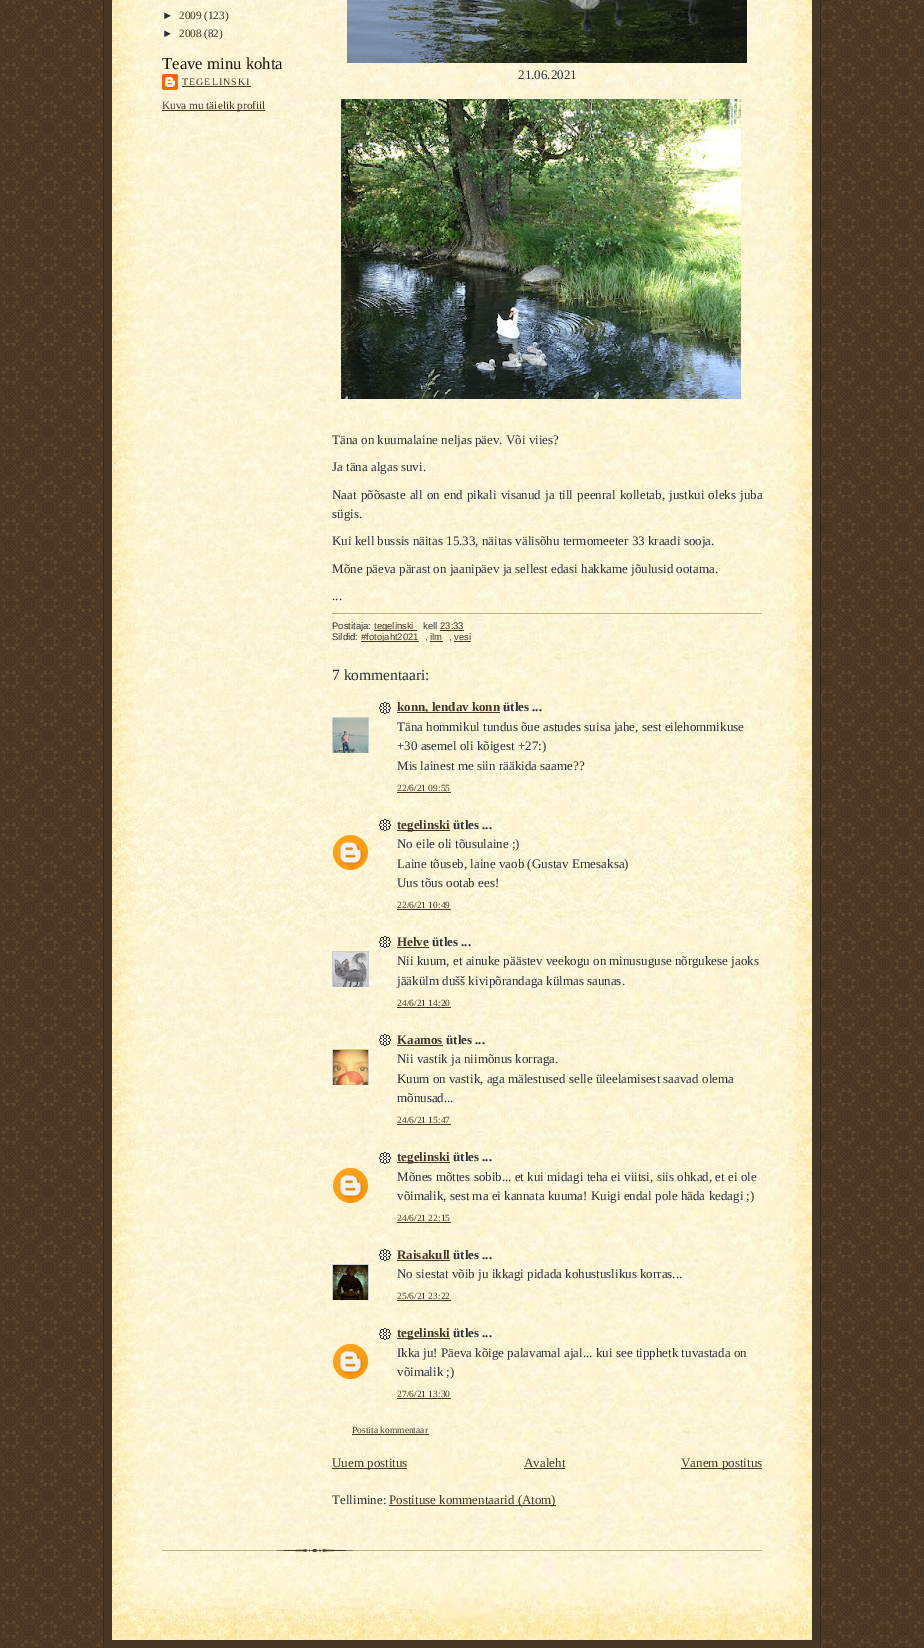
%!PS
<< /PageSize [924 1648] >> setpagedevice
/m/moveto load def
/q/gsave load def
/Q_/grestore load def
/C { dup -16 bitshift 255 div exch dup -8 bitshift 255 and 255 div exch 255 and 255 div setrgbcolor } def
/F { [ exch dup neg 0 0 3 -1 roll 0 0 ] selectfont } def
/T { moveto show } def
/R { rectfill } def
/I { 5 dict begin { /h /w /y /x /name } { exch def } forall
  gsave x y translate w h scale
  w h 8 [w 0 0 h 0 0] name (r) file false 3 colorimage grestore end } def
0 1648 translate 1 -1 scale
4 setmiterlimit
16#FFFFFF C
0 0 924 1648 R
(1.rgb) 0 0 924 1648 I
16#473624 C
104 0 716 1648 R
16#332A24 C
820 0 1 1648 R
103 0 1 1648 R
(2.rgb) 112 0 700 1559 I
/LiberationSans-Regular 11.25 F
16#29303B C
(►) 162 19 T
/LiberationSerif-Regular 11.25 F
16#473624 C
(2009) 179 19 T
16#29303B C
(\(123\)) 204 19 T
/LiberationSans-Regular 11.25 F
(►) 162 37 T
/LiberationSerif-Regular 11.25 F
16#473624 C
(2008) 179 37 T
16#29303B C
(\(82\)) 204 37 T
/LiberationSerif-Regular 16.75 F
16#211104 C
(Teave minu kohta) 162 69 T
(3.rgb) 162 74 16 16 I
/LiberationSerif-Regular 10 F
16#473624 C
182 85 m 1 0 (TEGELINSKI) ashow
182 86 69 1 R
162 110 103 1 R
/LiberationSerif-Regular 11.25 F
(Kuva mu täielik profiil) 162 109 T
(4.rgb) 347 0 400 63 I
/LiberationSerif-Regular 13 F
16#29303B C
(21.06.2021) 518 79 T
(5.rgb) 341 99 400 300 I
(Täna on kuumalaine neljas päev. Või viies?) 332 444 T
(Ja täna algas suvi.) 332 471 T
332 499 m .9 0 32 (Naat põõsaste all on end pikali visanud ja till peenral kolletab, justkui oleks juba) widthshow
(sügis.) 332 518 T
(Kui kell bussis näitas 15.33, näitas välisõhu termomeeter 33 kraadi sooja.) 332 545 T
(Mõne päeva pärast on jaanipäev ja sellest edasi hakkame jõulusid ootama.) 332 573 T
(...) 332 600 T
16#BFB186 C
332 613 430 1 R
/LiberationSans-Regular 9.5 F
16#29303B C
(Postitaja:) 332 629 T
16#473624 C
374 630 43 1 R
(tegelinski) 374 629 T
16#29303B C
(kell) 423 629 T
16#473624 C
(23:33) 440 629 T
440 630 24 1 R
16#29303B C
(Sildid:) 332 640 T
16#473624 C
361 641 58 1 R
(#fotojaht2021) 361 640 T
16#29303B C
(,) 425 640 T
16#473624 C
430 641 13 1 R
(ilm) 430 640 T
16#29303B C
(,) 449 640 T
16#473624 C
454 641 17 1 R
(vesi) 454 640 T
/LiberationSerif-Regular 15.5 F
16#29303B C
(7 kommentaari:) 332 680 T
(6.rgb) 379 702 12 12 I
16#473624 C
397 712 103 1 R
/LiberationSerif-Bold 13 F
(konn, lendav konn) 397 711 T
16#29303B C
(ütles ...) 503 711 T
q
332 717 37 36 rectclip
16#CCCCCC C
332.5 717.5 36 36 rectstroke
Q_
(7.rgb) 333 718 35 35 I
/LiberationSerif-Regular 13 F
(Täna hommikul tundus õue astudes suisa jahe, sest eilehommikuse) 397 731 T
(+30 asemel oli kõigest +27:\)) 397 750 T
(Mis lainest me siin rääkida saame??) 397 770 T
/LiberationSerif-Regular 9.5 F
16#473624 C
(22/6/21 09:55) 397 791 T
397 792 54 1 R
(8.rgb) 379 819 12 12 I
397 830 53 1 R
/LiberationSerif-Bold 13 F
(tegelinski) 397 829 T
16#29303B C
(ütles ...) 453 829 T
(9.rgb) 333 835 35 35 I
/LiberationSerif-Regular 13 F
(No eile oli tõusulaine ;\)) 397 848 T
(Laine tõuseb, laine vaob \(Gustav Ernesaksa\)) 397 868 T
(Uus tõus ootab ees!) 397 887 T
/LiberationSerif-Regular 9.5 F
16#473624 C
(22/6/21 10:49) 397 908 T
397 909 54 1 R
(10.rgb) 379 936 12 12 I
/LiberationSerif-Bold 13 F
(Helve) 397 946 T
397 947 32 1 R
16#29303B C
(ütles ...) 432 946 T
q
332 951 37 36 rectclip
16#CCCCCC C
332.5 951.5 36 36 rectstroke
Q_
(11.rgb) 333 952 35 35 I
/LiberationSerif-Regular 13 F
(Nii kuum, et ainuke päästev veekogu on minusuguse nõrgukese jaoks) 397 965 T
(jääkülm dušš kivipõrandaga külmas saunas.) 397 985 T
/LiberationSerif-Regular 9.5 F
16#473624 C
(24/6/21 14:20) 397 1006 T
397 1007 54 1 R
(12.rgb) 379 1034 12 12 I
/LiberationSerif-Bold 13 F
(Kaamos) 397 1044 T
397 1045 46 1 R
16#29303B C
(ütles ...) 446 1044 T
q
332 1049 37 36 rectclip
16#CCCCCC C
332.5 1049.5 36 36 rectstroke
Q_
(13.rgb) 333 1050 35 35 I
/LiberationSerif-Regular 13 F
(Nii vastik ja niimõnus korraga.) 397 1063 T
(Kuum on vastik, aga mälestused selle üleelamisest saavad olema) 397 1083 T
(mõnusad...) 397 1102 T
/LiberationSerif-Regular 9.5 F
16#473624 C
(24/6/21 15:47) 397 1123 T
397 1124 54 1 R
(14.rgb) 379 1152 12 12 I
397 1162 53 1 R
/LiberationSerif-Bold 13 F
(tegelinski) 397 1161 T
16#29303B C
(ütles ...) 453 1161 T
(15.rgb) 333 1168 35 35 I
/LiberationSerif-Regular 13 F
(Mõnes mõttes sobib... et kui midagi teha ei viitsi, siis ohkad, et ei ole) 397 1181 T
(võimalik, sest ma ei kannata kuuma! Kuigi endal pole häda kedagi ;\)) 397 1200 T
/LiberationSerif-Regular 9.5 F
16#473624 C
(24/6/21 22:15) 397 1221 T
397 1222 54 1 R
(16.rgb) 379 1249 12 12 I
/LiberationSerif-Bold 13 F
(Raisakull) 397 1259 T
397 1260 53 1 R
16#29303B C
(ütles ...) 453 1259 T
q
332 1264 37 36 rectclip
16#CCCCCC C
332.5 1264.5 36 36 rectstroke
Q_
(17.rgb) 333 1265 35 35 I
/LiberationSerif-Regular 13 F
(No siestat võib ju ikkagi pidada kohustuslikus korras...) 397 1278 T
/LiberationSerif-Regular 9.5 F
16#473624 C
(25/6/21 23:22) 397 1299 T
397 1300 54 1 R
(18.rgb) 379 1328 12 12 I
397 1338 53 1 R
/LiberationSerif-Bold 13 F
(tegelinski) 397 1337 T
16#29303B C
(ütles ...) 453 1337 T
(19.rgb) 333 1344 35 35 I
/LiberationSerif-Regular 13 F
(Ikka ju! Päeva kõige palavamal ajal... kui see tipphetk tuvastada on) 397 1357 T
(võimalik ;\)) 397 1376 T
/LiberationSerif-Regular 9.5 F
16#473624 C
(27/6/21 13:30) 397 1397 T
397 1398 54 1 R
(Postita kommentaar) 352 1433 T
352 1434 77 1 R
332 1468 75 1 R
/LiberationSerif-Regular 13 F
(Uuem postitus) 332 1467 T
(Avaleht) 524 1467 T
524 1468 41 1 R
681 1468 81 1 R
(Vanem postitus) 681 1467 T
16#29303B C
(Tellimine:) 332 1504 T
16#473624 C
389 1505 167 1 R
(Postituse kommentaarid \(Atom\)) 389 1504 T
(20.rgb) 162 1549 600 3 I
(21.rgb) 112 1559 700 81 I
showpage
